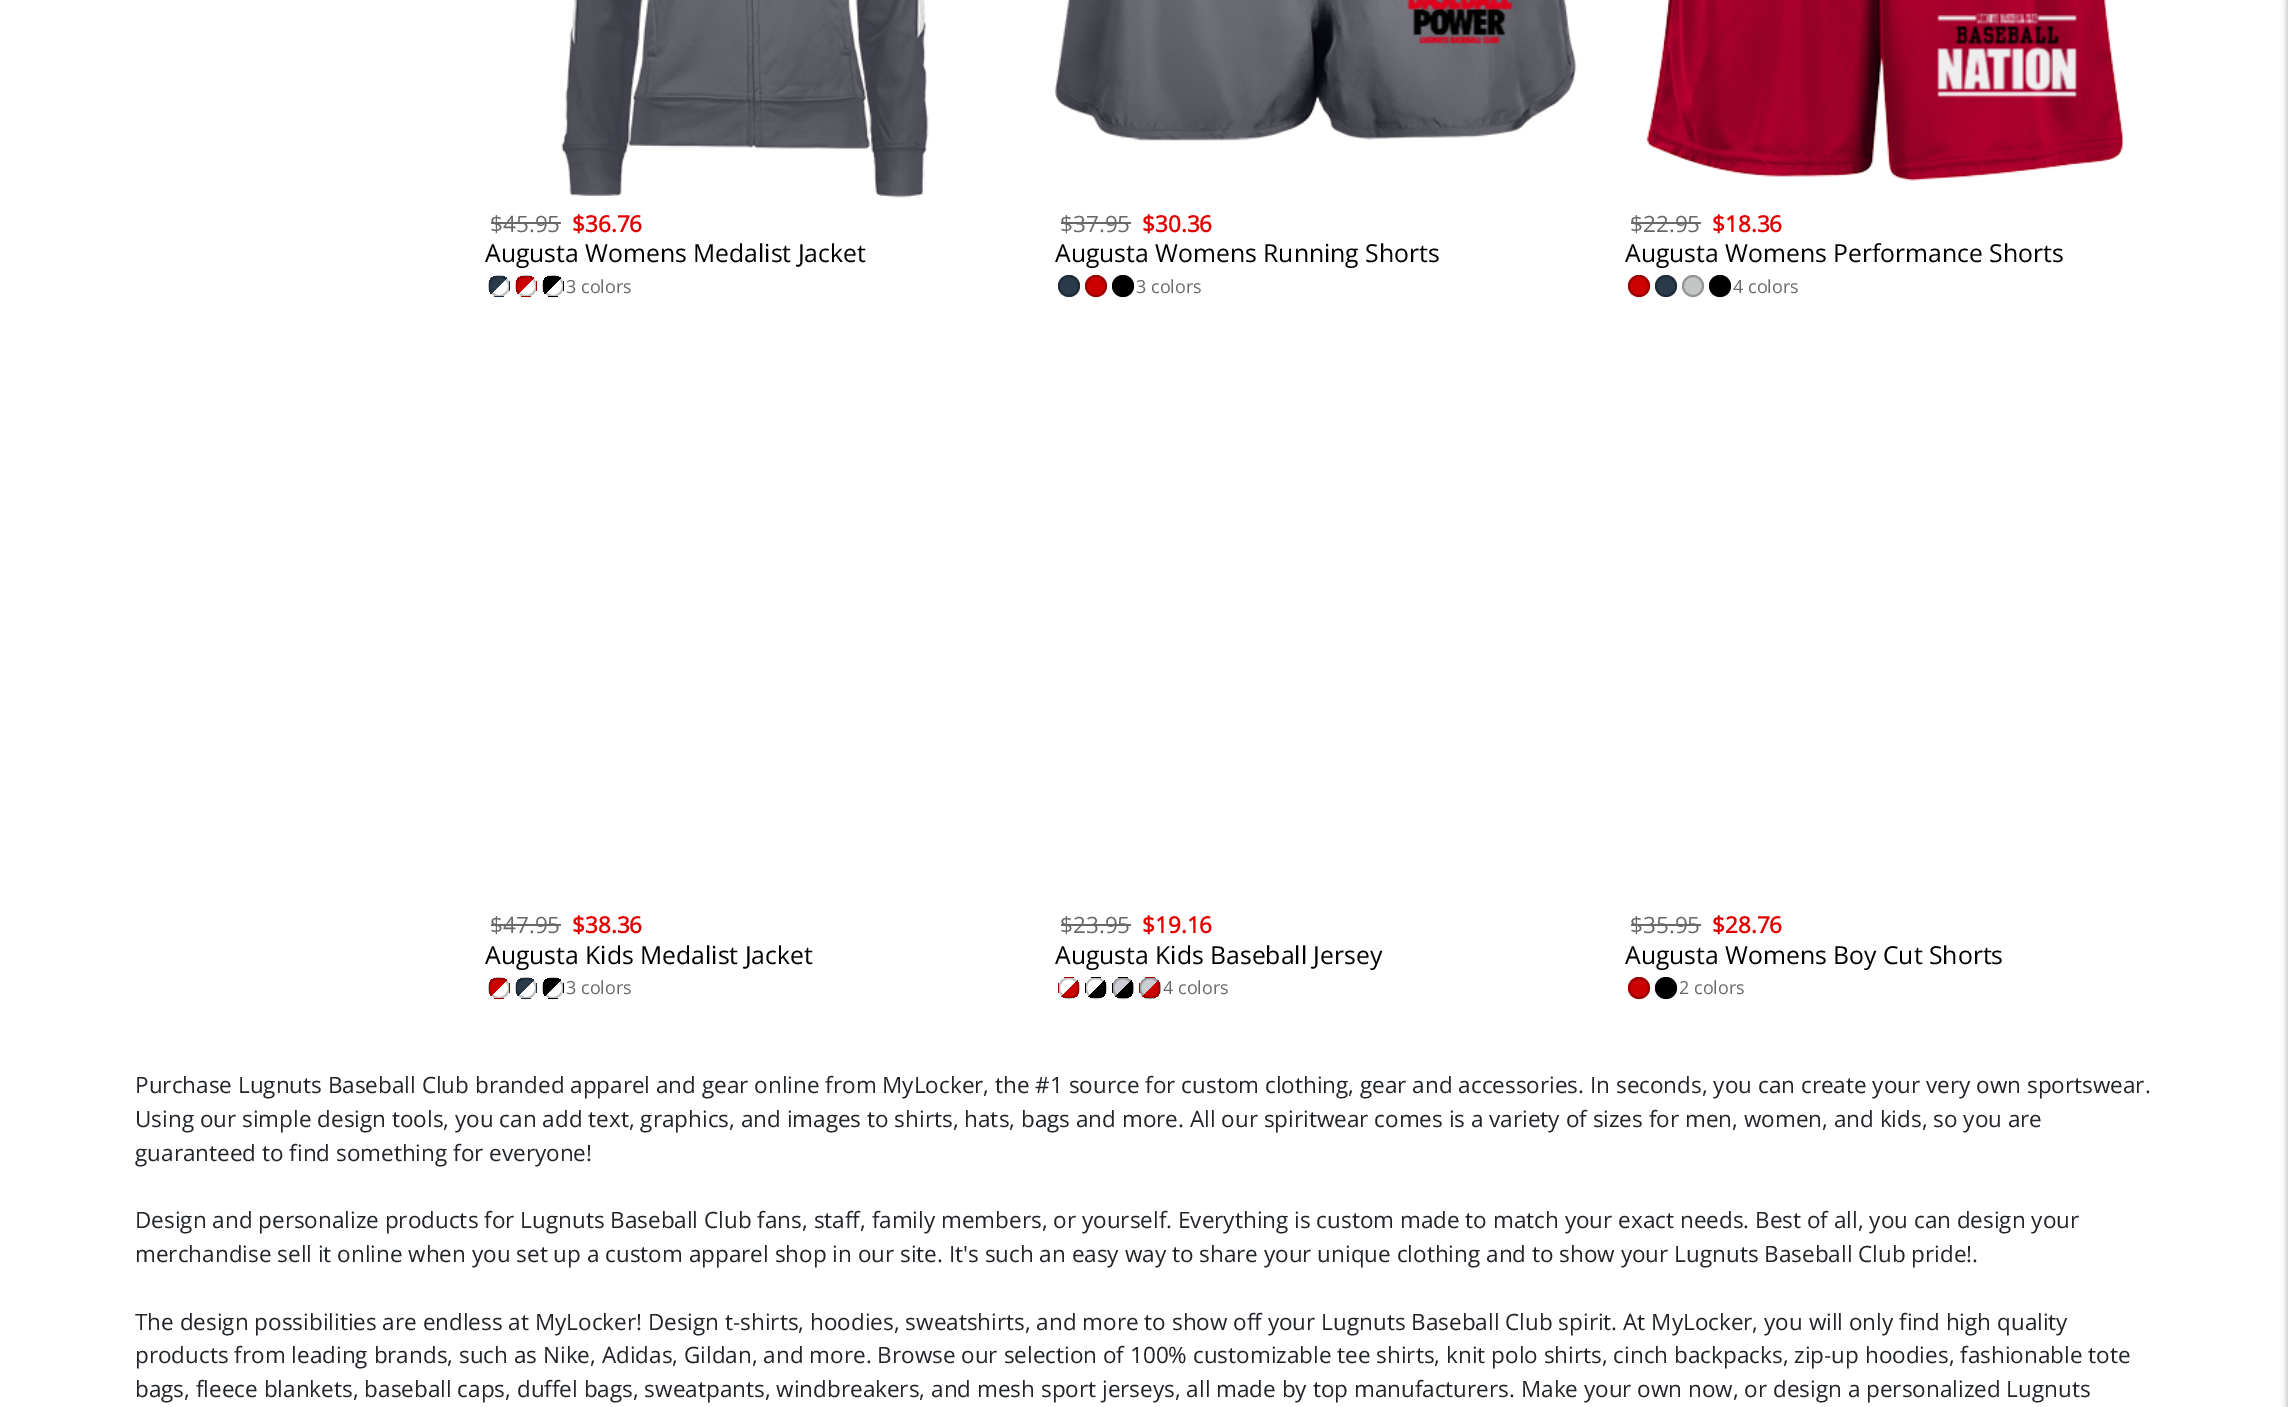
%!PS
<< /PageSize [2288 1407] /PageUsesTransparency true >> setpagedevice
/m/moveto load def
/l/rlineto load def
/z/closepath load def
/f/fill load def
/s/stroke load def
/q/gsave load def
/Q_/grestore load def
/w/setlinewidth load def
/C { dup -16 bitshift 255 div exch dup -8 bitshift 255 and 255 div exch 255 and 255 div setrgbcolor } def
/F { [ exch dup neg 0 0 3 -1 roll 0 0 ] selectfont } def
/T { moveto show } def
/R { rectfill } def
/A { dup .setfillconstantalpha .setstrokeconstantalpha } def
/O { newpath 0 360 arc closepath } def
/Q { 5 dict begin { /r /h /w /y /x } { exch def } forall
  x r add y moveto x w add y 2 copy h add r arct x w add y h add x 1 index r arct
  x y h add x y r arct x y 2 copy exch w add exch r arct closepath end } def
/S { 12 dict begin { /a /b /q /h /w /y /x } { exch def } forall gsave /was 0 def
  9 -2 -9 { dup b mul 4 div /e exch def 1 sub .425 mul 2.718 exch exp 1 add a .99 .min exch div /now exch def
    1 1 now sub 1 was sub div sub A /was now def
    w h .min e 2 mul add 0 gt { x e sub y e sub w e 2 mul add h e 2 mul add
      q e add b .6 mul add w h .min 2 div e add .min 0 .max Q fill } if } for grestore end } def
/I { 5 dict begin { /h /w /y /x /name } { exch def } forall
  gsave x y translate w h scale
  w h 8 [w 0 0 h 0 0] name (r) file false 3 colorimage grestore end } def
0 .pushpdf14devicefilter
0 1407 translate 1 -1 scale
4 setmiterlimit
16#FFFFFF C
0 0 2288 1407 R
(1.rgb) 561 0 368 198 I
/OpenSans-Regular 22.5 F
16#686868 C
($45.95) 490 232 T
491 222 70 2 R
/OpenSans-Bold 22.5 F
16#E30000 C
($36.76) 572 232 T
/OpenSans-Regular 24.75 F
16#000000 C
(Augusta Womens Medalist Jacket) 485 262 T
q
488 275 22 22 11 Q clip newpath
q 489 276 m 20 0 l 0 20 l -20 0 l z clip newpath
<< /ShadingType 2 /ColorSpace /DeviceRGB /Coords [489 276 509 296] /Extend [true true] /Function << /FunctionType 3 /Domain [0 1] /Functions [<< /FunctionType 2 /Domain [0 1] /C0 [.161 .227 .29] /C1 [.161 .227 .29] /N 1 >> << /FunctionType 2 /Domain [0 1] /C0 [.161 .227 .29] /C1 [1 1 1] /N 1 >> << /FunctionType 2 /Domain [0 1] /C0 [1 1 1] /C1 [1 1 1] /N 1 >>] /Bounds [.5 .51] /Encode [0 1 0 1 0 1] >> >> shfill Q_
q 509 276 m 1 0 l 0 20 l -1 0 l z clip newpath
<< /ShadingType 2 /ColorSpace /DeviceRGB /Coords [509 276 528 296] /Extend [true true] /Function << /FunctionType 3 /Domain [0 1] /Functions [<< /FunctionType 2 /Domain [0 1] /C0 [.161 .227 .29] /C1 [.161 .227 .29] /N 1 >> << /FunctionType 2 /Domain [0 1] /C0 [.161 .227 .29] /C1 [1 1 1] /N 1 >> << /FunctionType 2 /Domain [0 1] /C0 [1 1 1] /C1 [1 1 1] /N 1 >>] /Bounds [.5 .51] /Encode [0 1 0 1 0 1] >> >> shfill Q_
q 489 296 m 20 0 l 0 1 l -20 0 l z clip newpath
<< /ShadingType 2 /ColorSpace /DeviceRGB /Coords [489 296 509 315] /Extend [true true] /Function << /FunctionType 3 /Domain [0 1] /Functions [<< /FunctionType 2 /Domain [0 1] /C0 [.161 .227 .29] /C1 [.161 .227 .29] /N 1 >> << /FunctionType 2 /Domain [0 1] /C0 [.161 .227 .29] /C1 [1 1 1] /N 1 >> << /FunctionType 2 /Domain [0 1] /C0 [1 1 1] /C1 [1 1 1] /N 1 >>] /Bounds [.5 .51] /Encode [0 1 0 1 0 1] >> >> shfill Q_
Q_
0.25 A
2 w
499 286 10 O s
q
515 275 22 22 11 Q clip newpath
1 A
q 516 276 m 20 0 l 0 20 l -20 0 l z clip newpath
<< /ShadingType 2 /ColorSpace /DeviceRGB /Coords [516 276 536 296] /Extend [true true] /Function << /FunctionType 3 /Domain [0 1] /Functions [<< /FunctionType 2 /Domain [0 1] /C0 [.8 0 0] /C1 [.8 0 0] /N 1 >> << /FunctionType 2 /Domain [0 1] /C0 [.8 0 0] /C1 [1 1 1] /N 1 >> << /FunctionType 2 /Domain [0 1] /C0 [1 1 1] /C1 [1 1 1] /N 1 >>] /Bounds [.5 .51] /Encode [0 1 0 1 0 1] >> >> shfill Q_
q 536 276 m 1 0 l 0 20 l -1 0 l z clip newpath
<< /ShadingType 2 /ColorSpace /DeviceRGB /Coords [536 276 555 296] /Extend [true true] /Function << /FunctionType 3 /Domain [0 1] /Functions [<< /FunctionType 2 /Domain [0 1] /C0 [.8 0 0] /C1 [.8 0 0] /N 1 >> << /FunctionType 2 /Domain [0 1] /C0 [.8 0 0] /C1 [1 1 1] /N 1 >> << /FunctionType 2 /Domain [0 1] /C0 [1 1 1] /C1 [1 1 1] /N 1 >>] /Bounds [.5 .51] /Encode [0 1 0 1 0 1] >> >> shfill Q_
q 516 296 m 20 0 l 0 1 l -20 0 l z clip newpath
<< /ShadingType 2 /ColorSpace /DeviceRGB /Coords [516 296 536 315] /Extend [true true] /Function << /FunctionType 3 /Domain [0 1] /Functions [<< /FunctionType 2 /Domain [0 1] /C0 [.8 0 0] /C1 [.8 0 0] /N 1 >> << /FunctionType 2 /Domain [0 1] /C0 [.8 0 0] /C1 [1 1 1] /N 1 >> << /FunctionType 2 /Domain [0 1] /C0 [1 1 1] /C1 [1 1 1] /N 1 >>] /Bounds [.5 .51] /Encode [0 1 0 1 0 1] >> >> shfill Q_
Q_
526 286 10 O s
q
542 275 22 22 11 Q clip newpath
1 A
q 543 276 m 20 0 l 0 20 l -20 0 l z clip newpath
<< /ShadingType 2 /ColorSpace /DeviceRGB /Coords [543 276 563 296] /Extend [true true] /Function << /FunctionType 3 /Domain [0 1] /Functions [<< /FunctionType 2 /Domain [0 1] /C0 [0 0 0] /C1 [0 0 0] /N 1 >> << /FunctionType 2 /Domain [0 1] /C0 [0 0 0] /C1 [1 1 1] /N 1 >> << /FunctionType 2 /Domain [0 1] /C0 [1 1 1] /C1 [1 1 1] /N 1 >>] /Bounds [.5 .51] /Encode [0 1 0 1 0 1] >> >> shfill Q_
q 563 276 m 1 0 l 0 20 l -1 0 l z clip newpath
<< /ShadingType 2 /ColorSpace /DeviceRGB /Coords [563 276 582 296] /Extend [true true] /Function << /FunctionType 3 /Domain [0 1] /Functions [<< /FunctionType 2 /Domain [0 1] /C0 [0 0 0] /C1 [0 0 0] /N 1 >> << /FunctionType 2 /Domain [0 1] /C0 [0 0 0] /C1 [1 1 1] /N 1 >> << /FunctionType 2 /Domain [0 1] /C0 [1 1 1] /C1 [1 1 1] /N 1 >>] /Bounds [.5 .51] /Encode [0 1 0 1 0 1] >> >> shfill Q_
q 543 296 m 20 0 l 0 1 l -20 0 l z clip newpath
<< /ShadingType 2 /ColorSpace /DeviceRGB /Coords [543 296 563 315] /Extend [true true] /Function << /FunctionType 3 /Domain [0 1] /Functions [<< /FunctionType 2 /Domain [0 1] /C0 [0 0 0] /C1 [0 0 0] /N 1 >> << /FunctionType 2 /Domain [0 1] /C0 [0 0 0] /C1 [1 1 1] /N 1 >> << /FunctionType 2 /Domain [0 1] /C0 [1 1 1] /C1 [1 1 1] /N 1 >>] /Bounds [.5 .51] /Encode [0 1 0 1 0 1] >> >> shfill Q_
Q_
553 286 10 O s
/OpenSans-Regular 18 F
1 A
16#686868 C
(3 colors) 566 293 T
(2.rgb) 1054 0 523 141 I
/OpenSans-Regular 22.5 F
($37.95) 1060 232 T
1061 222 70 2 R
/OpenSans-Bold 22.5 F
16#E30000 C
($30.36) 1142 232 T
/OpenSans-Regular 24.75 F
16#000000 C
(Augusta Womens Running Shorts) 1055 262 T
16#293A4A C
1069 286 11 O f
0.25 A
16#000000 C
1069 286 10 O s
1 A
16#CC0000 C
1096 286 11 O f
0.25 A
16#000000 C
1096 286 10 O s
1 A
1123 286 11 O f
0.25 A
1123 286 10 O s
/OpenSans-Regular 18 F
1 A
16#686868 C
(3 colors) 1136 293 T
(3.rgb) 1645 0 479 181 I
/OpenSans-Regular 22.5 F
($22.95) 1630 232 T
1631 222 70 2 R
/OpenSans-Bold 22.5 F
16#E30000 C
($18.36) 1712 232 T
/OpenSans-Regular 24.75 F
16#000000 C
(Augusta Womens Performance Shorts) 1625 262 T
16#CC0000 C
1639 286 11 O f
0.25 A
16#000000 C
1639 286 10 O s
1 A
16#293A4A C
1666 286 11 O f
0.25 A
16#000000 C
1666 286 10 O s
1 A
16#C4C6C5 C
1693 286 11 O f
0.25 A
16#000000 C
1693 286 10 O s
1 A
1720 286 11 O f
0.25 A
1720 286 10 O s
/OpenSans-Regular 18 F
1 A
16#686868 C
(4 colors) 1733 293 T
/OpenSans-Regular 22.5 F
($47.95) 490 933 T
491 924 70 2 R
/OpenSans-Bold 22.5 F
16#E30000 C
($38.36) 572 933 T
/OpenSans-Regular 24.75 F
16#000000 C
(Augusta Kids Medalist Jacket) 485 964 T
q
488 977 22 22 11 Q clip newpath
q 489 978 m 20 0 l 0 20 l -20 0 l z clip newpath
<< /ShadingType 2 /ColorSpace /DeviceRGB /Coords [489 978 509 998] /Extend [true true] /Function << /FunctionType 3 /Domain [0 1] /Functions [<< /FunctionType 2 /Domain [0 1] /C0 [.8 0 0] /C1 [.8 0 0] /N 1 >> << /FunctionType 2 /Domain [0 1] /C0 [.8 0 0] /C1 [1 1 1] /N 1 >> << /FunctionType 2 /Domain [0 1] /C0 [1 1 1] /C1 [1 1 1] /N 1 >>] /Bounds [.5 .51] /Encode [0 1 0 1 0 1] >> >> shfill Q_
q 509 978 m 1 0 l 0 20 l -1 0 l z clip newpath
<< /ShadingType 2 /ColorSpace /DeviceRGB /Coords [509 978 528 998] /Extend [true true] /Function << /FunctionType 3 /Domain [0 1] /Functions [<< /FunctionType 2 /Domain [0 1] /C0 [.8 0 0] /C1 [.8 0 0] /N 1 >> << /FunctionType 2 /Domain [0 1] /C0 [.8 0 0] /C1 [1 1 1] /N 1 >> << /FunctionType 2 /Domain [0 1] /C0 [1 1 1] /C1 [1 1 1] /N 1 >>] /Bounds [.5 .51] /Encode [0 1 0 1 0 1] >> >> shfill Q_
q 489 998 m 20 0 l 0 1 l -20 0 l z clip newpath
<< /ShadingType 2 /ColorSpace /DeviceRGB /Coords [489 998 509 1017] /Extend [true true] /Function << /FunctionType 3 /Domain [0 1] /Functions [<< /FunctionType 2 /Domain [0 1] /C0 [.8 0 0] /C1 [.8 0 0] /N 1 >> << /FunctionType 2 /Domain [0 1] /C0 [.8 0 0] /C1 [1 1 1] /N 1 >> << /FunctionType 2 /Domain [0 1] /C0 [1 1 1] /C1 [1 1 1] /N 1 >>] /Bounds [.5 .51] /Encode [0 1 0 1 0 1] >> >> shfill Q_
Q_
0.25 A
499 988 10 O s
q
515 977 22 22 11 Q clip newpath
1 A
q 516 978 m 20 0 l 0 20 l -20 0 l z clip newpath
<< /ShadingType 2 /ColorSpace /DeviceRGB /Coords [516 978 536 998] /Extend [true true] /Function << /FunctionType 3 /Domain [0 1] /Functions [<< /FunctionType 2 /Domain [0 1] /C0 [.161 .227 .29] /C1 [.161 .227 .29] /N 1 >> << /FunctionType 2 /Domain [0 1] /C0 [.161 .227 .29] /C1 [1 1 1] /N 1 >> << /FunctionType 2 /Domain [0 1] /C0 [1 1 1] /C1 [1 1 1] /N 1 >>] /Bounds [.5 .51] /Encode [0 1 0 1 0 1] >> >> shfill Q_
q 536 978 m 1 0 l 0 20 l -1 0 l z clip newpath
<< /ShadingType 2 /ColorSpace /DeviceRGB /Coords [536 978 555 998] /Extend [true true] /Function << /FunctionType 3 /Domain [0 1] /Functions [<< /FunctionType 2 /Domain [0 1] /C0 [.161 .227 .29] /C1 [.161 .227 .29] /N 1 >> << /FunctionType 2 /Domain [0 1] /C0 [.161 .227 .29] /C1 [1 1 1] /N 1 >> << /FunctionType 2 /Domain [0 1] /C0 [1 1 1] /C1 [1 1 1] /N 1 >>] /Bounds [.5 .51] /Encode [0 1 0 1 0 1] >> >> shfill Q_
q 516 998 m 20 0 l 0 1 l -20 0 l z clip newpath
<< /ShadingType 2 /ColorSpace /DeviceRGB /Coords [516 998 536 1017] /Extend [true true] /Function << /FunctionType 3 /Domain [0 1] /Functions [<< /FunctionType 2 /Domain [0 1] /C0 [.161 .227 .29] /C1 [.161 .227 .29] /N 1 >> << /FunctionType 2 /Domain [0 1] /C0 [.161 .227 .29] /C1 [1 1 1] /N 1 >> << /FunctionType 2 /Domain [0 1] /C0 [1 1 1] /C1 [1 1 1] /N 1 >>] /Bounds [.5 .51] /Encode [0 1 0 1 0 1] >> >> shfill Q_
Q_
526 988 10 O s
q
542 977 22 22 11 Q clip newpath
1 A
q 543 978 m 20 0 l 0 20 l -20 0 l z clip newpath
<< /ShadingType 2 /ColorSpace /DeviceRGB /Coords [543 978 563 998] /Extend [true true] /Function << /FunctionType 3 /Domain [0 1] /Functions [<< /FunctionType 2 /Domain [0 1] /C0 [0 0 0] /C1 [0 0 0] /N 1 >> << /FunctionType 2 /Domain [0 1] /C0 [0 0 0] /C1 [1 1 1] /N 1 >> << /FunctionType 2 /Domain [0 1] /C0 [1 1 1] /C1 [1 1 1] /N 1 >>] /Bounds [.5 .51] /Encode [0 1 0 1 0 1] >> >> shfill Q_
q 563 978 m 1 0 l 0 20 l -1 0 l z clip newpath
<< /ShadingType 2 /ColorSpace /DeviceRGB /Coords [563 978 582 998] /Extend [true true] /Function << /FunctionType 3 /Domain [0 1] /Functions [<< /FunctionType 2 /Domain [0 1] /C0 [0 0 0] /C1 [0 0 0] /N 1 >> << /FunctionType 2 /Domain [0 1] /C0 [0 0 0] /C1 [1 1 1] /N 1 >> << /FunctionType 2 /Domain [0 1] /C0 [1 1 1] /C1 [1 1 1] /N 1 >>] /Bounds [.5 .51] /Encode [0 1 0 1 0 1] >> >> shfill Q_
q 543 998 m 20 0 l 0 1 l -20 0 l z clip newpath
<< /ShadingType 2 /ColorSpace /DeviceRGB /Coords [543 998 563 1017] /Extend [true true] /Function << /FunctionType 3 /Domain [0 1] /Functions [<< /FunctionType 2 /Domain [0 1] /C0 [0 0 0] /C1 [0 0 0] /N 1 >> << /FunctionType 2 /Domain [0 1] /C0 [0 0 0] /C1 [1 1 1] /N 1 >> << /FunctionType 2 /Domain [0 1] /C0 [1 1 1] /C1 [1 1 1] /N 1 >>] /Bounds [.5 .51] /Encode [0 1 0 1 0 1] >> >> shfill Q_
Q_
553 988 10 O s
/OpenSans-Regular 18 F
1 A
16#686868 C
(3 colors) 566 994 T
/OpenSans-Regular 22.5 F
($23.95) 1060 933 T
1061 924 70 2 R
/OpenSans-Bold 22.5 F
16#E30000 C
($19.16) 1142 933 T
/OpenSans-Regular 24.75 F
16#000000 C
(Augusta Kids Baseball Jersey) 1055 964 T
q
1058 977 22 22 11 Q clip newpath
q 1059 977 m 20 0 l 0 1 l -20 0 l z clip newpath
<< /ShadingType 2 /ColorSpace /DeviceRGB /Coords [1059 959 1079 978] /Extend [true true] /Function << /FunctionType 3 /Domain [0 1] /Functions [<< /FunctionType 2 /Domain [0 1] /C0 [1 1 1] /C1 [1 1 1] /N 1 >> << /FunctionType 2 /Domain [0 1] /C0 [1 1 1] /C1 [.8 0 0] /N 1 >> << /FunctionType 2 /Domain [0 1] /C0 [.8 0 0] /C1 [.8 0 0] /N 1 >>] /Bounds [.5 .51] /Encode [0 1 0 1 0 1] >> >> shfill Q_
q 1058 978 m 1 0 l 0 20 l -1 0 l z clip newpath
<< /ShadingType 2 /ColorSpace /DeviceRGB /Coords [1040 978 1059 998] /Extend [true true] /Function << /FunctionType 3 /Domain [0 1] /Functions [<< /FunctionType 2 /Domain [0 1] /C0 [1 1 1] /C1 [1 1 1] /N 1 >> << /FunctionType 2 /Domain [0 1] /C0 [1 1 1] /C1 [.8 0 0] /N 1 >> << /FunctionType 2 /Domain [0 1] /C0 [.8 0 0] /C1 [.8 0 0] /N 1 >>] /Bounds [.5 .51] /Encode [0 1 0 1 0 1] >> >> shfill Q_
q 1059 978 m 20 0 l 0 20 l -20 0 l z clip newpath
<< /ShadingType 2 /ColorSpace /DeviceRGB /Coords [1059 978 1079 998] /Extend [true true] /Function << /FunctionType 3 /Domain [0 1] /Functions [<< /FunctionType 2 /Domain [0 1] /C0 [1 1 1] /C1 [1 1 1] /N 1 >> << /FunctionType 2 /Domain [0 1] /C0 [1 1 1] /C1 [.8 0 0] /N 1 >> << /FunctionType 2 /Domain [0 1] /C0 [.8 0 0] /C1 [.8 0 0] /N 1 >>] /Bounds [.5 .51] /Encode [0 1 0 1 0 1] >> >> shfill Q_
Q_
0.25 A
1069 988 10 O s
q
1085 977 22 22 11 Q clip newpath
1 A
q 1086 977 m 20 0 l 0 1 l -20 0 l z clip newpath
<< /ShadingType 2 /ColorSpace /DeviceRGB /Coords [1086 959 1106 978] /Extend [true true] /Function << /FunctionType 3 /Domain [0 1] /Functions [<< /FunctionType 2 /Domain [0 1] /C0 [1 1 1] /C1 [1 1 1] /N 1 >> << /FunctionType 2 /Domain [0 1] /C0 [1 1 1] /C1 [0 0 0] /N 1 >> << /FunctionType 2 /Domain [0 1] /C0 [0 0 0] /C1 [0 0 0] /N 1 >>] /Bounds [.5 .51] /Encode [0 1 0 1 0 1] >> >> shfill Q_
q 1085 978 m 1 0 l 0 20 l -1 0 l z clip newpath
<< /ShadingType 2 /ColorSpace /DeviceRGB /Coords [1067 978 1086 998] /Extend [true true] /Function << /FunctionType 3 /Domain [0 1] /Functions [<< /FunctionType 2 /Domain [0 1] /C0 [1 1 1] /C1 [1 1 1] /N 1 >> << /FunctionType 2 /Domain [0 1] /C0 [1 1 1] /C1 [0 0 0] /N 1 >> << /FunctionType 2 /Domain [0 1] /C0 [0 0 0] /C1 [0 0 0] /N 1 >>] /Bounds [.5 .51] /Encode [0 1 0 1 0 1] >> >> shfill Q_
q 1086 978 m 20 0 l 0 20 l -20 0 l z clip newpath
<< /ShadingType 2 /ColorSpace /DeviceRGB /Coords [1086 978 1106 998] /Extend [true true] /Function << /FunctionType 3 /Domain [0 1] /Functions [<< /FunctionType 2 /Domain [0 1] /C0 [1 1 1] /C1 [1 1 1] /N 1 >> << /FunctionType 2 /Domain [0 1] /C0 [1 1 1] /C1 [0 0 0] /N 1 >> << /FunctionType 2 /Domain [0 1] /C0 [0 0 0] /C1 [0 0 0] /N 1 >>] /Bounds [.5 .51] /Encode [0 1 0 1 0 1] >> >> shfill Q_
Q_
1096 988 10 O s
q
1112 977 22 22 11 Q clip newpath
1 A
q 1113 977 m 20 0 l 0 1 l -20 0 l z clip newpath
<< /ShadingType 2 /ColorSpace /DeviceRGB /Coords [1113 959 1133 978] /Extend [true true] /Function << /FunctionType 3 /Domain [0 1] /Functions [<< /FunctionType 2 /Domain [0 1] /C0 [.8 .8 .831] /C1 [.8 .8 .831] /N 1 >> << /FunctionType 2 /Domain [0 1] /C0 [.8 .8 .831] /C1 [0 0 0] /N 1 >> << /FunctionType 2 /Domain [0 1] /C0 [0 0 0] /C1 [0 0 0] /N 1 >>] /Bounds [.5 .51] /Encode [0 1 0 1 0 1] >> >> shfill Q_
q 1112 978 m 1 0 l 0 20 l -1 0 l z clip newpath
<< /ShadingType 2 /ColorSpace /DeviceRGB /Coords [1094 978 1113 998] /Extend [true true] /Function << /FunctionType 3 /Domain [0 1] /Functions [<< /FunctionType 2 /Domain [0 1] /C0 [.8 .8 .831] /C1 [.8 .8 .831] /N 1 >> << /FunctionType 2 /Domain [0 1] /C0 [.8 .8 .831] /C1 [0 0 0] /N 1 >> << /FunctionType 2 /Domain [0 1] /C0 [0 0 0] /C1 [0 0 0] /N 1 >>] /Bounds [.5 .51] /Encode [0 1 0 1 0 1] >> >> shfill Q_
q 1113 978 m 20 0 l 0 20 l -20 0 l z clip newpath
<< /ShadingType 2 /ColorSpace /DeviceRGB /Coords [1113 978 1133 998] /Extend [true true] /Function << /FunctionType 3 /Domain [0 1] /Functions [<< /FunctionType 2 /Domain [0 1] /C0 [.8 .8 .831] /C1 [.8 .8 .831] /N 1 >> << /FunctionType 2 /Domain [0 1] /C0 [.8 .8 .831] /C1 [0 0 0] /N 1 >> << /FunctionType 2 /Domain [0 1] /C0 [0 0 0] /C1 [0 0 0] /N 1 >>] /Bounds [.5 .51] /Encode [0 1 0 1 0 1] >> >> shfill Q_
q 1133 978 m 1 0 l 0 20 l -1 0 l z clip newpath
<< /ShadingType 2 /ColorSpace /DeviceRGB /Coords [1133 978 1152 998] /Extend [true true] /Function << /FunctionType 3 /Domain [0 1] /Functions [<< /FunctionType 2 /Domain [0 1] /C0 [.8 .8 .831] /C1 [.8 .8 .831] /N 1 >> << /FunctionType 2 /Domain [0 1] /C0 [.8 .8 .831] /C1 [0 0 0] /N 1 >> << /FunctionType 2 /Domain [0 1] /C0 [0 0 0] /C1 [0 0 0] /N 1 >>] /Bounds [.5 .51] /Encode [0 1 0 1 0 1] >> >> shfill Q_
q 1113 998 m 20 0 l 0 1 l -20 0 l z clip newpath
<< /ShadingType 2 /ColorSpace /DeviceRGB /Coords [1113 998 1133 1017] /Extend [true true] /Function << /FunctionType 3 /Domain [0 1] /Functions [<< /FunctionType 2 /Domain [0 1] /C0 [.8 .8 .831] /C1 [.8 .8 .831] /N 1 >> << /FunctionType 2 /Domain [0 1] /C0 [.8 .8 .831] /C1 [0 0 0] /N 1 >> << /FunctionType 2 /Domain [0 1] /C0 [0 0 0] /C1 [0 0 0] /N 1 >>] /Bounds [.5 .51] /Encode [0 1 0 1 0 1] >> >> shfill Q_
Q_
1123 988 10 O s
q
1139 977 22 22 11 Q clip newpath
1 A
q 1140 977 m 20 0 l 0 1 l -20 0 l z clip newpath
<< /ShadingType 2 /ColorSpace /DeviceRGB /Coords [1140 959 1160 978] /Extend [true true] /Function << /FunctionType 3 /Domain [0 1] /Functions [<< /FunctionType 2 /Domain [0 1] /C0 [.8 .8 .831] /C1 [.8 .8 .831] /N 1 >> << /FunctionType 2 /Domain [0 1] /C0 [.8 .8 .831] /C1 [.8 0 0] /N 1 >> << /FunctionType 2 /Domain [0 1] /C0 [.8 0 0] /C1 [.8 0 0] /N 1 >>] /Bounds [.5 .51] /Encode [0 1 0 1 0 1] >> >> shfill Q_
q 1139 978 m 1 0 l 0 20 l -1 0 l z clip newpath
<< /ShadingType 2 /ColorSpace /DeviceRGB /Coords [1121 978 1140 998] /Extend [true true] /Function << /FunctionType 3 /Domain [0 1] /Functions [<< /FunctionType 2 /Domain [0 1] /C0 [.8 .8 .831] /C1 [.8 .8 .831] /N 1 >> << /FunctionType 2 /Domain [0 1] /C0 [.8 .8 .831] /C1 [.8 0 0] /N 1 >> << /FunctionType 2 /Domain [0 1] /C0 [.8 0 0] /C1 [.8 0 0] /N 1 >>] /Bounds [.5 .51] /Encode [0 1 0 1 0 1] >> >> shfill Q_
q 1140 978 m 20 0 l 0 20 l -20 0 l z clip newpath
<< /ShadingType 2 /ColorSpace /DeviceRGB /Coords [1140 978 1160 998] /Extend [true true] /Function << /FunctionType 3 /Domain [0 1] /Functions [<< /FunctionType 2 /Domain [0 1] /C0 [.8 .8 .831] /C1 [.8 .8 .831] /N 1 >> << /FunctionType 2 /Domain [0 1] /C0 [.8 .8 .831] /C1 [.8 0 0] /N 1 >> << /FunctionType 2 /Domain [0 1] /C0 [.8 0 0] /C1 [.8 0 0] /N 1 >>] /Bounds [.5 .51] /Encode [0 1 0 1 0 1] >> >> shfill Q_
q 1160 978 m 1 0 l 0 20 l -1 0 l z clip newpath
<< /ShadingType 2 /ColorSpace /DeviceRGB /Coords [1160 978 1179 998] /Extend [true true] /Function << /FunctionType 3 /Domain [0 1] /Functions [<< /FunctionType 2 /Domain [0 1] /C0 [.8 .8 .831] /C1 [.8 .8 .831] /N 1 >> << /FunctionType 2 /Domain [0 1] /C0 [.8 .8 .831] /C1 [.8 0 0] /N 1 >> << /FunctionType 2 /Domain [0 1] /C0 [.8 0 0] /C1 [.8 0 0] /N 1 >>] /Bounds [.5 .51] /Encode [0 1 0 1 0 1] >> >> shfill Q_
q 1140 998 m 20 0 l 0 1 l -20 0 l z clip newpath
<< /ShadingType 2 /ColorSpace /DeviceRGB /Coords [1140 998 1160 1017] /Extend [true true] /Function << /FunctionType 3 /Domain [0 1] /Functions [<< /FunctionType 2 /Domain [0 1] /C0 [.8 .8 .831] /C1 [.8 .8 .831] /N 1 >> << /FunctionType 2 /Domain [0 1] /C0 [.8 .8 .831] /C1 [.8 0 0] /N 1 >> << /FunctionType 2 /Domain [0 1] /C0 [.8 0 0] /C1 [.8 0 0] /N 1 >>] /Bounds [.5 .51] /Encode [0 1 0 1 0 1] >> >> shfill Q_
Q_
1150 988 10 O s
/OpenSans-Regular 18 F
1 A
16#686868 C
(4 colors) 1163 994 T
/OpenSans-Regular 22.5 F
($35.95) 1630 933 T
1631 924 70 2 R
/OpenSans-Bold 22.5 F
16#E30000 C
($28.76) 1712 933 T
/OpenSans-Regular 24.75 F
16#000000 C
(Augusta Womens Boy Cut Shorts) 1625 964 T
16#CC0000 C
1639 988 11 O f
0.25 A
16#000000 C
1639 988 10 O s
1 A
1666 988 11 O f
0.25 A
1666 988 10 O s
/OpenSans-Regular 18 F
1 A
16#686868 C
(2 colors) 1679 994 T
/OpenSans-Regular 22.5 F
16#212529 C
(Purchase Lugnuts Baseball Club branded apparel and gear online from MyLocker, the #1 source for custom clothing, gear and accessories. In seconds, you can create your very own sportswear.) 135 1093 T
(Using our simple design tools, you can add text, graphics, and images to shirts, hats, bags and more. All our spiritwear comes is a variety of sizes for men, women, and kids, so you are) 135 1127 T
(guaranteed to find something for everyone!) 135 1161 T
(Design and personalize products for Lugnuts Baseball Club fans, staff, family members, or yourself. Everything is custom made to match your exact needs. Best of all, you can design your) 135 1228 T
(merchandise sell it online when you set up a custom apparel shop in our site. It's such an easy way to share your unique clothing and to show your Lugnuts Baseball Club pride!.) 135 1262 T
(The design possibilities are endless at MyLocker! Design t-shirts, hoodies, sweatshirts, and more to show off your Lugnuts Baseball Club spirit. At MyLocker, you will only find high quality) 135 1330 T
(products from leading brands, such as Nike, Adidas, Gildan, and more. Browse our selection of 100% customizable tee shirts, knit polo shirts, cinch backpacks, zip-up hoodies, fashionable tote) 135 1363 T
(bags, fleece blankets, baseball caps, duffel bags, sweatpants, windbreakers, and mesh sport jerseys, all made by top manufacturers. Make your own now, or design a personalized Lugnuts) 135 1397 T
16#000000 C
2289 0 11 1407 0 4 .5 S
.poppdf14devicefilter showpage
